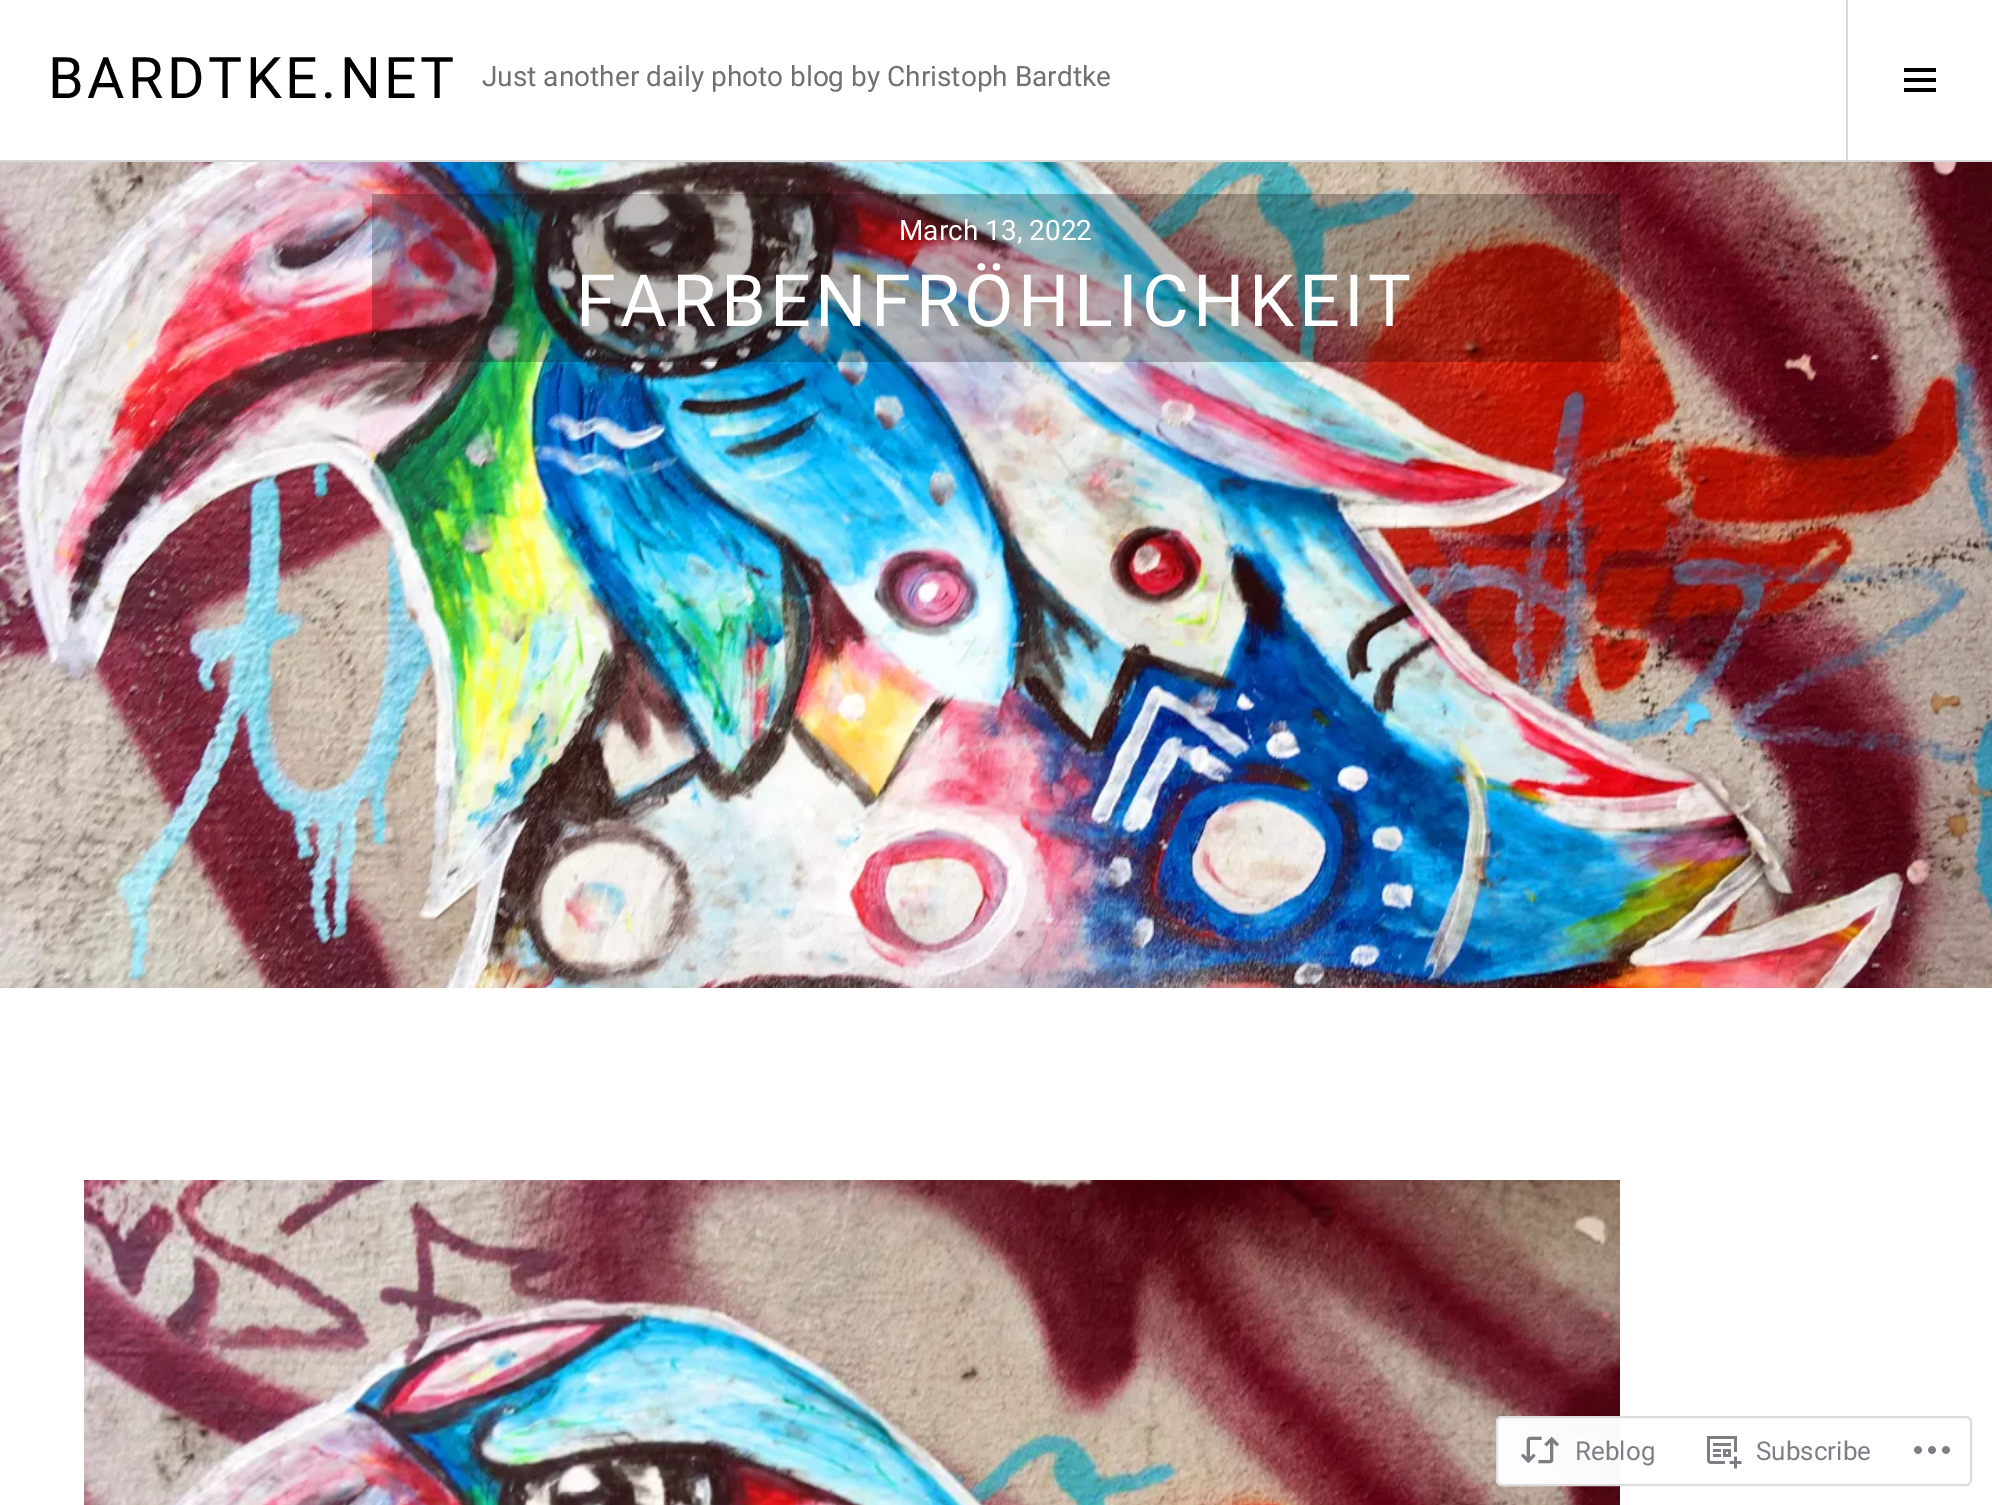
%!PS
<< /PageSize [1992 1505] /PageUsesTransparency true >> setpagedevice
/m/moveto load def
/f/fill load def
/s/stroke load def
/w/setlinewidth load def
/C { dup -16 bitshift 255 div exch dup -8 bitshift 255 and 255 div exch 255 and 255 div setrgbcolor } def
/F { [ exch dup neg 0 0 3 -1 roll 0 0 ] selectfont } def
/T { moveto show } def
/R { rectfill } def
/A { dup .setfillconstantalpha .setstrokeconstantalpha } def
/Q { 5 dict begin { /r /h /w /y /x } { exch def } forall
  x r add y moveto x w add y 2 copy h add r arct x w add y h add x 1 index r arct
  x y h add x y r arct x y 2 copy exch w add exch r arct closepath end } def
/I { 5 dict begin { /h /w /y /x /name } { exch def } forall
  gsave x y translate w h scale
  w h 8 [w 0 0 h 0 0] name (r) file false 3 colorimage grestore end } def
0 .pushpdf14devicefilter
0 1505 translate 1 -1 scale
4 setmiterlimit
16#FFFFFF C
0 0 1992 1505 R
16#D8D8D8 C
0 160 1992 2 R
/Roboto-Regular 57.25 F
16#000000 C
48 98 m 3.5 0 (BARDTKE.NET) ashow
/Roboto-Regular 28 F
16#707070 C
(Just another daily photo blog by Christoph Bardtke) 482 86 T
16#D8D8D8 C
1846 0 2 160 R
(1.rgb) 1904 68 32 24 I
(2.rgb) 0 162 1992 826 I
0.25 A
16#000000 C
372 194 1248 168 R
1 A
16#FFFFFF C
(March 13, 2022) 899 240 T
/Roboto-Regular 72 F
576 326 m 4.5 0 (FARBENFRÖHLICHKEIT) ashow
(3.rgb) 84 1180 1536 325 I
0.98 A
1496 1416 476 70 6 Q f
16#DCDCDE C
2 w
1497 1417 474 68 5 Q s
1 A
(4.rgb) 1520 1436 40 28 I
/Roboto-Regular 26 F
16#7B7F84 C
(Reblog) 1575 1460 T
(5.rgb) 1707 1436 35 33 I
(Subscribe) 1756 1460 T
(6.rgb) 1914 1446 36 8 I
.poppdf14devicefilter showpage
